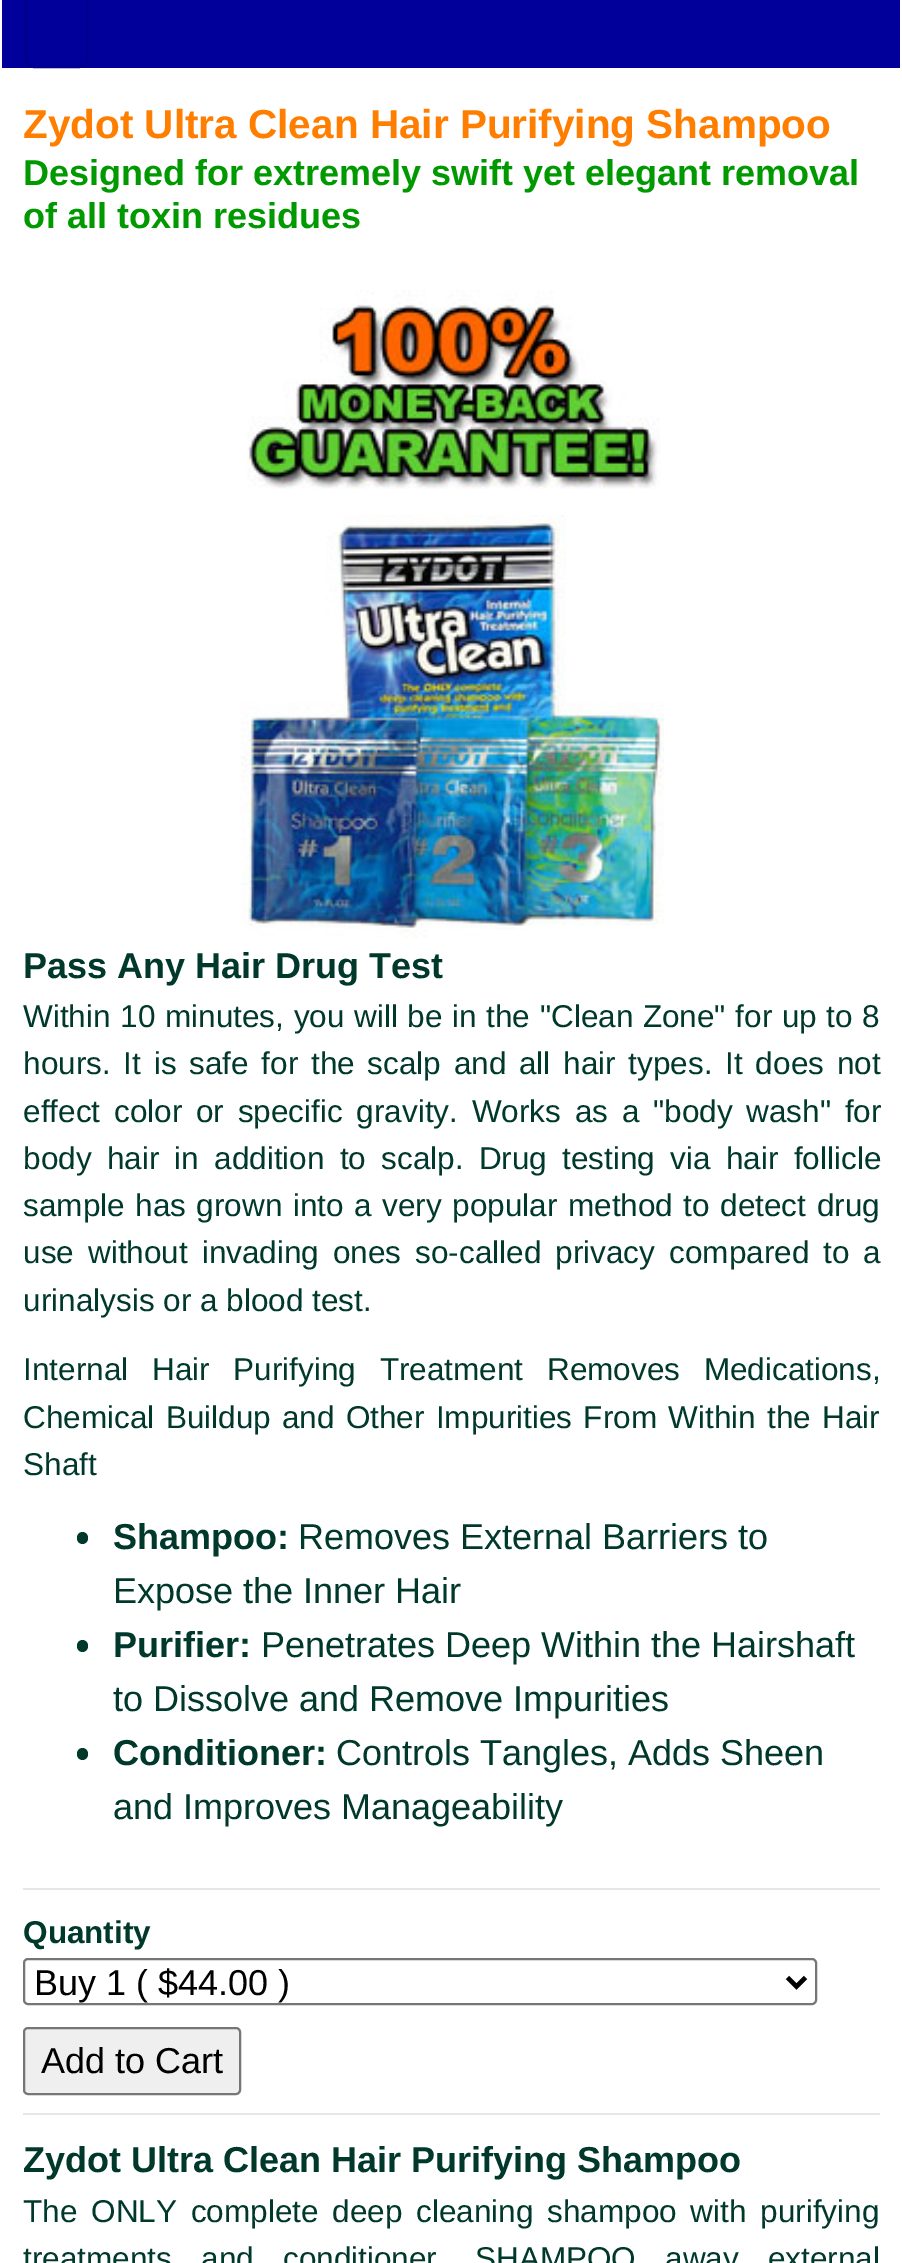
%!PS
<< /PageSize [902 2263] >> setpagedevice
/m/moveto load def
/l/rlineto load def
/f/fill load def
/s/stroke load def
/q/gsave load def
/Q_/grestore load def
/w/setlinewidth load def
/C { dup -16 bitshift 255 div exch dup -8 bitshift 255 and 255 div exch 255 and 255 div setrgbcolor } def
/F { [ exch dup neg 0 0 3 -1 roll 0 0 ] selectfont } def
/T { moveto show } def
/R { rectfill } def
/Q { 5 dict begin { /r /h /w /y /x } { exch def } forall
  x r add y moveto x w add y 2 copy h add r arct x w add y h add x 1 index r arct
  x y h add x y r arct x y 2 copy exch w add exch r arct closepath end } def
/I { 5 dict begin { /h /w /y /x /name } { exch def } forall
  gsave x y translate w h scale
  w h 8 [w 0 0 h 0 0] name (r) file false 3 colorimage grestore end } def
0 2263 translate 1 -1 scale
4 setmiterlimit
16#FFFFFF C
0 0 902 2263 R
16#01009A C
2 0 898 68 R
16#01008B C
2 w
26 -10 61 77 8 Q s
/LiberationSans-Bold 40.5 F
16#FF7E00 C
(Zydot Ultra Clean Hair Purifying Shampoo) 23 138 T
/LiberationSans-Bold 36 F
16#009900 C
(Designed for extremely swift yet elegant removal) 23 185 T
(of all toxin residues) 23 228 T
(1.rgb) 247 290 414 199 I
(2.rgb) 240 515 424 423 I
16#00392B C
(Pass Any Hair Drug Test) 23 978 T
/LiberationSans-Regular 31.5 F
23 1027 m .9 0 32 (Within 10 minutes, you will be in the "Clean Zone" for up to 8) widthshow
23 1074 m 4 0 32 (hours. It is safe for the scalp and all hair types. It does not) widthshow
23 1122 m 5 0 32 (effect color or specific gravity. Works as a "body wash" for) widthshow
23 1169 m 6.5 0 32 (body hair in addition to scalp. Drug testing via hair follicle) widthshow
23 1216 m 1.8 0 32 (sample has grown into a very popular method to detect drug) widthshow
23 1263 m 5.25 0 32 (use without invading ones so-called privacy compared to a) widthshow
(urinalysis or a blood test.) 23 1311 T
23 1380 m 15 0 32 (Internal Hair Purifying Treatment Removes Medications,) widthshow
23 1428 m 2.5 0 32 (Chemical Buildup and Other Impurities From Within the Hair) widthshow
(Shaft) 23 1475 T
77 1532 11 12 5.5 Q f
/LiberationSans-Bold 36 F
(Shampoo:) 113 1549 T
/LiberationSans-Regular 36 F
(Removes External Barriers to) 298 1549 T
(Expose the Inner Hair) 113 1603 T
77 1640 11 12 5.5 Q f
/LiberationSans-Bold 36 F
(Purifier:) 113 1657 T
/LiberationSans-Regular 36 F
(Penetrates Deep Within the Hairshaft) 261 1657 T
(to Dissolve and Remove Impurities) 113 1711 T
77 1748 11 12 5.5 Q f
/LiberationSans-Bold 36 F
(Conditioner:) 113 1765 T
/LiberationSans-Regular 36 F
(Controls Tangles, Adds Sheen) 336 1765 T
(and Improves Manageability) 113 1819 T
16#E6E6E6 C
23 1888 857 2 R
/LiberationSans-Bold 31.5 F
16#00392B C
(Quantity) 23 1943 T
16#767676 C
24 1959 792 45 4 Q s
16#000000 C
4.5 w
787.5 1977.5 m 9 9 l 9 -9 l s
/LiberationSans-Regular 36 F
(Buy 1 \( $44.00 \)) 34 1995 T
16#EFEFEF C
24 2028 216 66 4 Q q f Q_
16#767676 C
2 w
s
16#000000 C
(Add to Cart) 41 2073 T
16#E6E6E6 C
23 2113 857 2 R
/LiberationSans-Bold 36 F
16#00392B C
(Zydot Ultra Clean Hair Purifying Shampoo) 23 2172 T
/LiberationSans-Regular 31.5 F
23 2222 m 5 0 32 (The ONLY complete deep cleaning shampoo with purifying) widthshow
23 2269 m 20.5 0 32 (treatments and conditioner. SHAMPOO away external) widthshow
showpage
